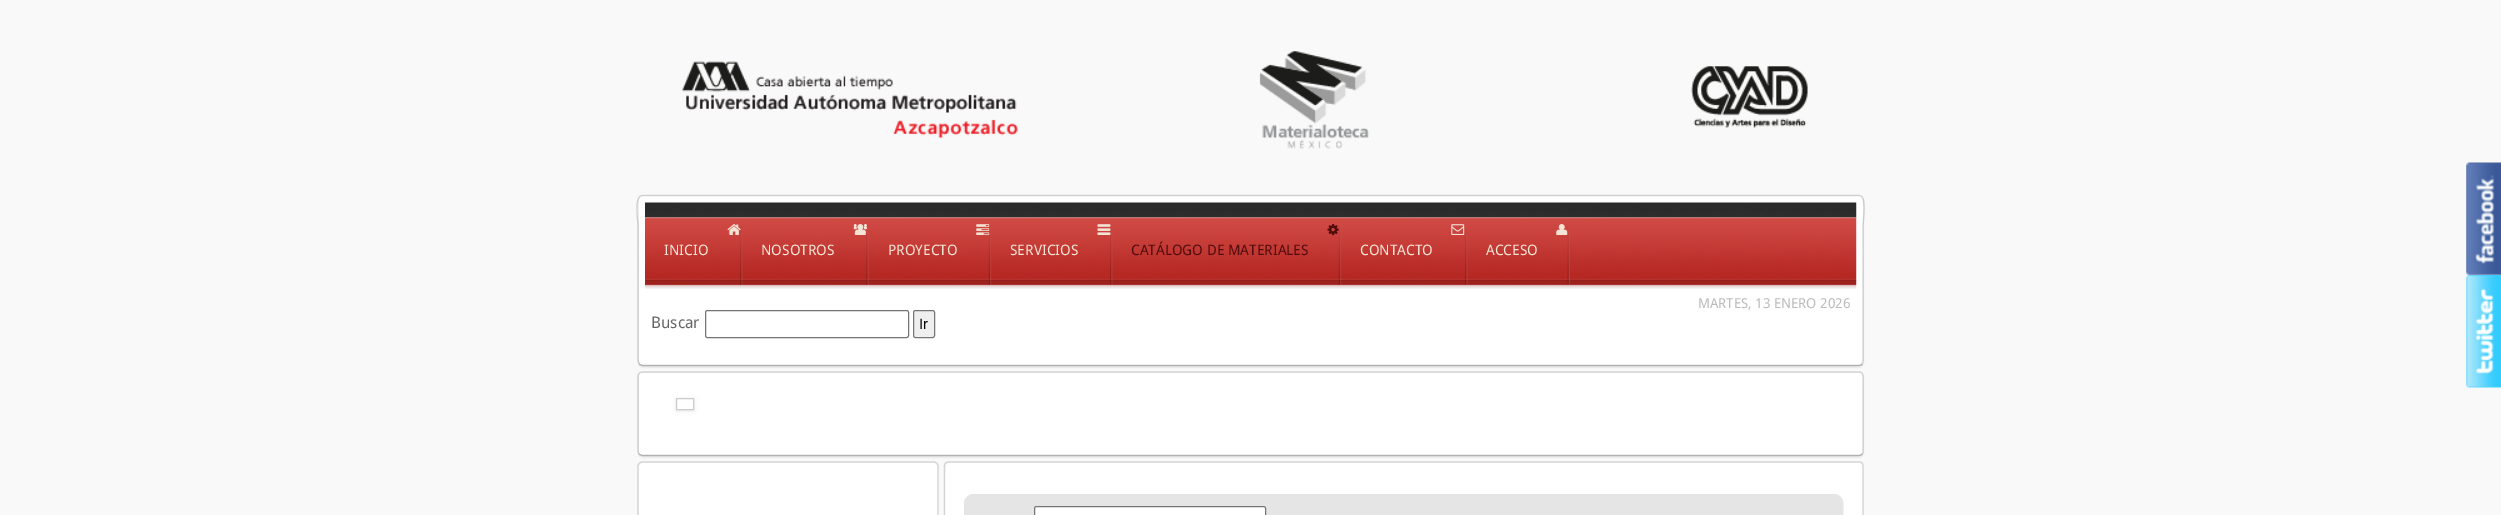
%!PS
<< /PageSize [2501 515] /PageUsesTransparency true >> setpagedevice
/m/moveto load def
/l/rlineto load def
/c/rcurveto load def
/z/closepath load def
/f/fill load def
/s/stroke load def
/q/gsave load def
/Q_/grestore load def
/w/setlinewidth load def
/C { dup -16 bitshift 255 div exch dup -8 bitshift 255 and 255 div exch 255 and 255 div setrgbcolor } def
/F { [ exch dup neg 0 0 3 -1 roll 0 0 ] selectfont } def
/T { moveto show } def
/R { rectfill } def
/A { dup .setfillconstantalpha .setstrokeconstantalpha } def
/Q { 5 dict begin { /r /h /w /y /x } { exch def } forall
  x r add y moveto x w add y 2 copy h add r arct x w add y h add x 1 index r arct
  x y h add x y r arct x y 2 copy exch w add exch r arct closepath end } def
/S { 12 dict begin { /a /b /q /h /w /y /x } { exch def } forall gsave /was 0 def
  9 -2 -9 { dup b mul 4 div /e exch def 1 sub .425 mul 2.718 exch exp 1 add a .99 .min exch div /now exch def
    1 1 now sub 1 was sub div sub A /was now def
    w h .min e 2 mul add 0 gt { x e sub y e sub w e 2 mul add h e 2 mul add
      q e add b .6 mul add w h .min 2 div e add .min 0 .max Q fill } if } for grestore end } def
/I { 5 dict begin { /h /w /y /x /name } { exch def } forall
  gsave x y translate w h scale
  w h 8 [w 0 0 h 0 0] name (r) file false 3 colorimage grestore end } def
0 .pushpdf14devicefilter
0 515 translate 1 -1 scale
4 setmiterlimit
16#F9F9F9 C
0 0 2501 515 R
(1.rgb) 682 51 1126 98 I
16#000000 C
638 196 1226 172 5 .5 .06 S
16#FFFFFF C
639 196 1224 169 4 Q f
0.25 A
16#000000 C
1.2 w
1862 364.5 m -3 1 l -1216.5 0 l -3 -1 l s
0.15 A
639.5 364.5 m -1.5 -3.5 l 0 -134 l 0 -8 -4.5 -31.5 4.5 -31.5 c 1216.5 0 l 8.5 0 4 23.5 4 31.5 c 0 134 l -1 3.5 l s
1 A
(2.rgb) 645 202 1212 16 I
(3.rgb) 645 217 1212 72 I
(4.rgb) 740 226 3 59 I
(5.rgb) 727 224 14 11 I
/DroidSans-Regular 14.4 F
16#F4E4D5 C
(INICIO) 664 255 T
(6.rgb) 866 229 3 56 I
(7.rgb) 853 224 14 11 I
(NOSOTROS) 761 255 T
(8.rgb) 988 226 4 59 I
(9.rgb) 976 224 14 11 I
(PROYECTO) 888 255 T
(10.rgb) 1110 226 3 59 I
(11.rgb) 1097 224 14 11 I
(SERVICIOS) 1010 255 T
(12.rgb) 1338 226 4 59 I
(13.rgb) 1327 224 12 12 I
16#520C0E C
(CATÁLOGO DE MATERIALES) 1131 255 T
(14.rgb) 1465 226 3 59 I
(15.rgb) 1451 224 14 11 I
16#F4E4D5 C
(CONTACTO) 1360 255 T
(16.rgb) 1567 227 3 58 I
(17.rgb) 1556 224 12 11 I
(ACCESO) 1486 255 T
/DroidSans-Regular 13.75 F
16#BBBBBB C
(MARTES, 13 ENERO 2026) 1698 308 T
/DroidSans-Regular 16 F
16#666666 C
(Buscar) 651 328 T
16#767676 C
1 w
705.5 310.5 203 27 2 Q s
16#EFEFEF C
913.5 310.5 21 27 2 Q q f Q_
16#767676 C
s
/LiberationSans-Regular 15 F
16#000000 C
(Ir) 919 329 T
(18.rgb) 2466 162 35 114 I
(19.rgb) 2466 275 35 113 I
638 373 1226 85 5 .5 .06 S
16#FFFFFF C
639 373 1224 82 4 Q f
0.25 A
16#000000 C
1.2 w
1862 454.5 m -3 1 l -1216.5 0 l -3 -1 l s
0.15 A
639.5 454.5 m -1 -1 -1.5 -2 -1.5 -3.5 c 0 -75 l 0 -1 .5 -2 1.5 -3 c .5 -.5 2 -1 3 -1 c 1216.5 0 l 1 0 2 .5 3 1 c .5 1 1 2 1 3 c 0 75 l 0 1.5 -.5 2.5 -1 3.5 c s
1 A
676 399 18 12 0 2 .1 S
16#FFFFFF C
676.5 398.5 m 17 0 l 0 11 l -17 0 l z q f Q_
16#CCCCCC C
1 w
s
16#FFFFFF C
639 463 299 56 4 Q f
0.15 A
16#000000 C
1.2 w
639.5 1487 m -1.5 -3 l 0 -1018 l 0 -2 2 -4 4.5 -4 c 291.5 0 l 2 0 4 2 4 4 c 0 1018 l -1 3 l s
1 A
16#FFFFFF C
945 463 918 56 4 Q f
0.15 A
16#000000 C
945.5 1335.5 m -.5 -.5 -1 -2 -1 -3 c 0 -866.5 l 0 -1 .5 -2 1 -3 c 1 -.5 2 -1 3.5 -1 c 910 0 l 1 0 2 .5 3 1 c .5 1 1 2 1 3 c 0 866.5 l 0 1 -.5 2.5 -1 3 c s
1 A
(20.rgb) 964 494 880 21 I
16#FFFFFF C
1034.5 506.5 231 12 2 Q q f Q_
16#767676 C
1 w
s
.poppdf14devicefilter showpage
